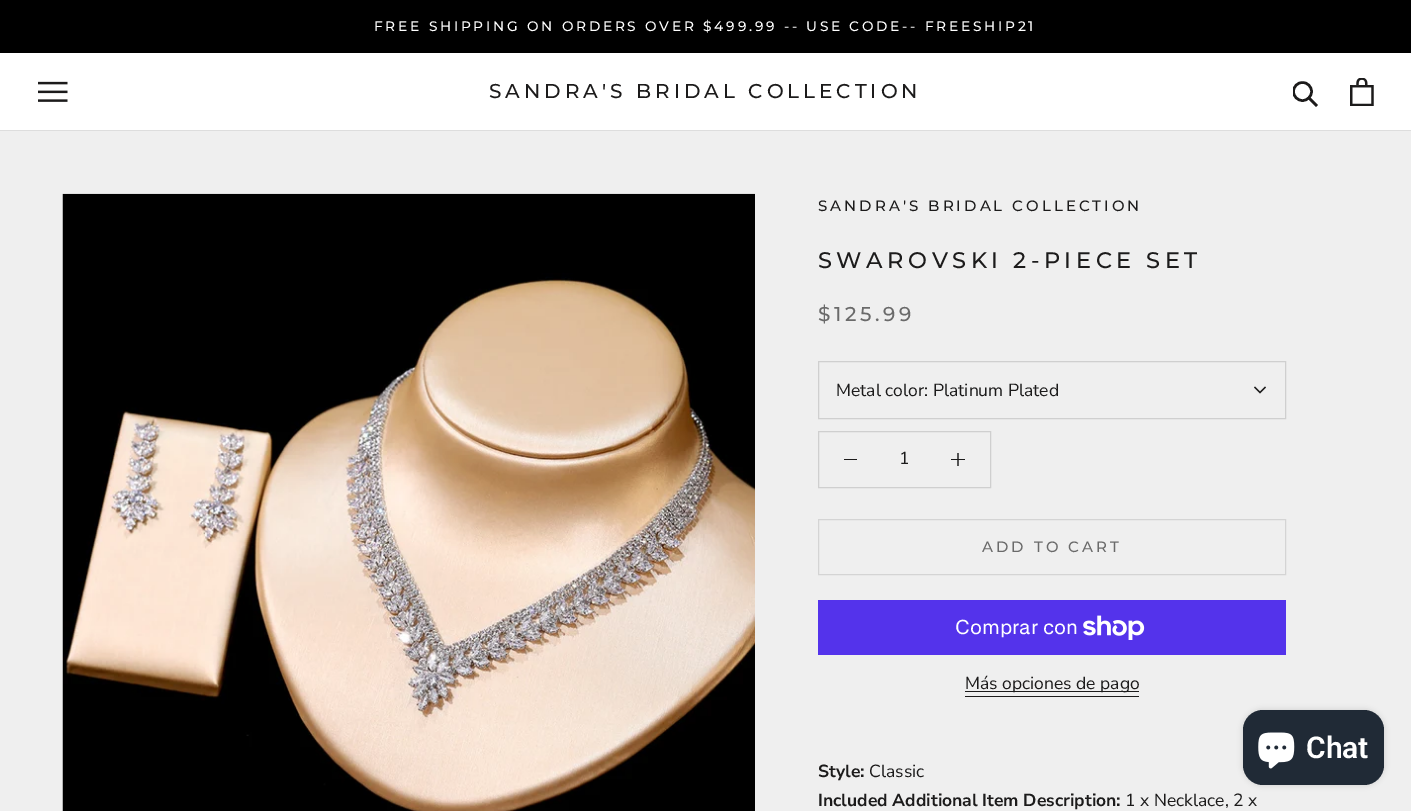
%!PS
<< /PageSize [1411 811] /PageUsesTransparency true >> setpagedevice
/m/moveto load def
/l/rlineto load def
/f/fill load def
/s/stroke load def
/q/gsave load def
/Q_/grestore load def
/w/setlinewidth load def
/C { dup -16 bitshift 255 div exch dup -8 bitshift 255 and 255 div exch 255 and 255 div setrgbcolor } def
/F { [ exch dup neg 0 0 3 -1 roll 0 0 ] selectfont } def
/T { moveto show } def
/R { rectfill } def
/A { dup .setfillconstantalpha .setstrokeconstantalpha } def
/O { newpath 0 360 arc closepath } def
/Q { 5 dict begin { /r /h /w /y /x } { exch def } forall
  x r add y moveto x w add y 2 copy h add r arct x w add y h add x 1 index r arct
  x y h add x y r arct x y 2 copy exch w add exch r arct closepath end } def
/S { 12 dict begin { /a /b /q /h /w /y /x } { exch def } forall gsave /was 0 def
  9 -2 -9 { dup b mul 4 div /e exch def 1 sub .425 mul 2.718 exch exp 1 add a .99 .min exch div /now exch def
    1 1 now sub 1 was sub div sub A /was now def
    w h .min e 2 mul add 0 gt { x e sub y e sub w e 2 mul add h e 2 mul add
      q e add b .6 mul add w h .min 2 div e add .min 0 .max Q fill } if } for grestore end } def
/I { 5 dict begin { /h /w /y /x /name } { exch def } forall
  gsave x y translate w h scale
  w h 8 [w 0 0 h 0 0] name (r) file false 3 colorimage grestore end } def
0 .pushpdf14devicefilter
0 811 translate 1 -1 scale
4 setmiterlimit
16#EFEFEF C
0 0 1411 811 R
16#000000 C
0 0 1411 53 R
/Montserrat-Medium 13.75 F
16#FFFFFF C
374 31 m 2.75 0 (FREE SHIPPING ON ORDERS OVER $499.99 -- USE CODE-- FREESHIP21) ashow
0 53 1411 77 R
16#DDDDDD C
0 130 1411 1 R
(1.rgb) 38 81 30 21 I
/Montserrat-Medium 20 F
16#1C1B1B C
489 98 m 4 0 (SANDRA'S BRIDAL COLLECTION) ashow
2.5 w
2 setlinecap
1316 105 m -7 -7 l s
q
1293 81 26 27 rectclip
0 setlinecap
1302.5 91.5 9 O s
Q_
(2.rgb) 1350 78 24 28 I
(3.rgb) 62 193 693 618 I
/Montserrat-Medium 15 F
818 211 m 3 0 (SANDRA'S BRIDAL COLLECTION) ashow
/Montserrat-Medium 22.5 F
818 268 m 4.5 0 (SWAROVSKI 2-PIECE SET) ashow
/Montserrat-Medium 20 F
16#6A6A6A C
818 321 m 3.5 0 ($125.99) ashow
16#CFCFCF C
1 w
0 setlinecap
818.5 361.5 467 57 rectstroke
/NunitoSans-Regular 17.5 F
16#1C1B1B C
(Metal color: Platinum Plated) 836 396 T
1.3 w
2 setlinecap
1265 387.5 m -5 5 l -5 -5 l s
16#CFCFCF C
1 w
0 setlinecap
818.5 431.5 172 56 rectstroke
16#1C1B1B C
844 459 13 1 R
(1) 899 464 T
q
951 453 14 13 rectclip
1.3 w
2 setlinecap
958 453.5 m 0 12 l s
Q_
951 459 14 1 R
16#D4D4D4 C
818.5 519.5 467 55 rectstroke
/Montserrat-Medium 15 F
16#6A6A6A C
982 552 m 3 0 (ADD TO CART) ashow
16#5433EB C
818 600 468 55 R
/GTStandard-Regular 20 F
16#FFFFFF C
(Comprar con) 955 634 T
(4.rgb) 1083 615 62 25 I
16#1C1B1B C
965 691 174 1 R
/NunitoSans-Regular 17.5 F
(Más opciones de pago) 965 689 T
965 696 174 1 R
/NunitoSans-Bold 17.5 F
(Style:) 818 777 T
/NunitoSans-Regular 17.5 F
(Classic) 869 777 T
/NunitoSans-Bold 17.5 F
(Included Additional Item Description:) 818 806 T
/NunitoSans-Regular 17.5 F
(1 x Necklace, 2 x) 1125 806 T
16#000000 C
1243 710 141 75 20 3 .15 S
16#202A36 C
1243 710 141 75 20 Q f
(5.rgb) 1258 732 37 37 I
/Roboto-SemiBold 30 F
16#FFFFFF C
(Chat) 1306 758 T
.poppdf14devicefilter showpage
